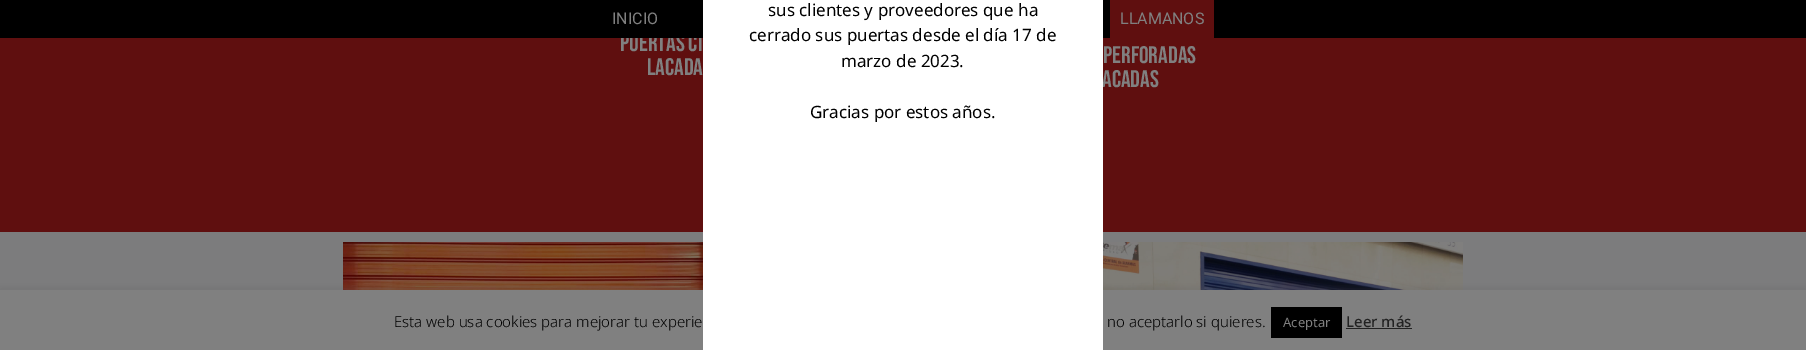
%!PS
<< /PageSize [1806 350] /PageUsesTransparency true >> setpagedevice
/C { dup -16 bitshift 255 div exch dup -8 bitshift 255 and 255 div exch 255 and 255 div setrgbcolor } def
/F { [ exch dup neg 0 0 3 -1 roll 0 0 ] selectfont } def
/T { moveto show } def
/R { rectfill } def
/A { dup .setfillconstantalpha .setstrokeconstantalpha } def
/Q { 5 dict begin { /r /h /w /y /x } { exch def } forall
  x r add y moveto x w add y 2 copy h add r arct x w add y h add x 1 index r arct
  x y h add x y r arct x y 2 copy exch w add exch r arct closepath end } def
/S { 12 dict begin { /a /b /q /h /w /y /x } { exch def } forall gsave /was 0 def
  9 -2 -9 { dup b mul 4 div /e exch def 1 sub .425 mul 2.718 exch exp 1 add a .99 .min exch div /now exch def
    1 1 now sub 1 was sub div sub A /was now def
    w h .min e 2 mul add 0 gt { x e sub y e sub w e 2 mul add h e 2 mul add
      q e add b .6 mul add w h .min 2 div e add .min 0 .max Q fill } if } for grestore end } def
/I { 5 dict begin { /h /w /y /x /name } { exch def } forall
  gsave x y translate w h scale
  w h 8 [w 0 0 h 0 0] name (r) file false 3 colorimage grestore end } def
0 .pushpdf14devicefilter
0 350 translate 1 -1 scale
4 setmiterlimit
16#7C7C7D C
0 0 1806 350 R
16#5F0F0F C
0 38 1806 194 R
/BebasNeue-Regular 24 F
16#808080 C
(PUERTAS CI) 620 51 T
16#000000 C
0 0 1806 38 R
16#808080 C
(ACADAS) 1102 87 T
(1.rgb) 343 242 360 48 I
(2.rgb) 1103 242 360 48 I
16#565656 C
0 289 1806 60 0 5 .3 S
16#808080 C
0 290 1806 60 R
16#FFFFFF C
703 0 400 350 R
/NotoSans-Regular 17 F
16#000000 C
(sus clientes y proveedores que ha) 768 16 T
(cerrado sus puertas desde el día 17 de) 749 41 T
(marzo de 2023.) 841 67 T
(Gracias por estos años.) 810 118 T
/Roboto-Regular 16 F
16#808080 C
(INICIO) 612 24 T
16#5F0F0F C
1110 0 104 38 R
16#808080 C
(LLAMANOS) 1120 24 T
/BebasNeue-Regular 24 F
(LACADA) 647 75 T
(PERFORADAS) 1103 63 T
/NotoSans-Light 15 F
16#000000 C
(Esta web usa cookies para mejorar tu experie) 394 327 T
(no aceptarlo si quieres.) 1107 327 T
1271 307 71 31 R
/NotoSans-Regular 13 F
16#808080 C
(Aceptar) 1283 327 T
/NotoSans-Medium 15 F
16#222222 C
(Leer más) 1346 327 T
1346 328 66 1 R
.poppdf14devicefilter showpage
